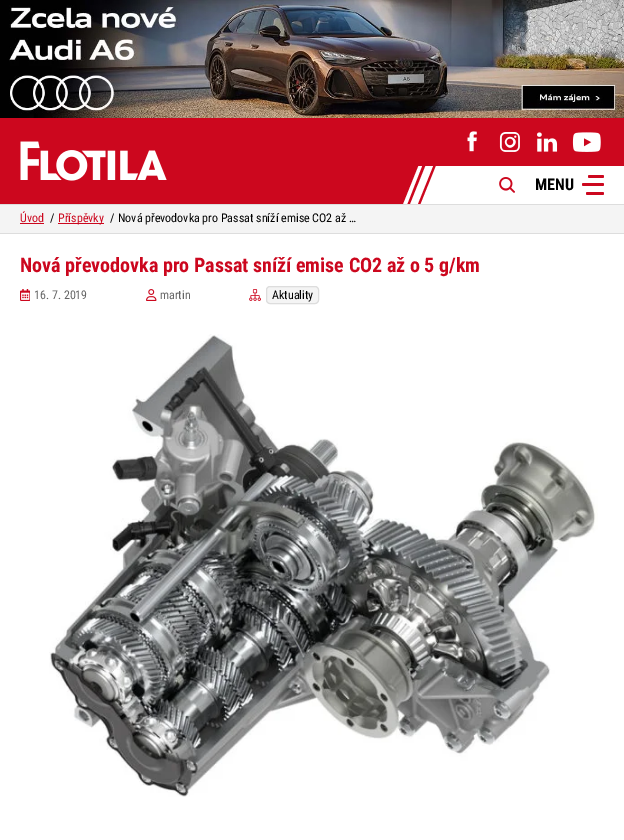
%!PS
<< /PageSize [624 840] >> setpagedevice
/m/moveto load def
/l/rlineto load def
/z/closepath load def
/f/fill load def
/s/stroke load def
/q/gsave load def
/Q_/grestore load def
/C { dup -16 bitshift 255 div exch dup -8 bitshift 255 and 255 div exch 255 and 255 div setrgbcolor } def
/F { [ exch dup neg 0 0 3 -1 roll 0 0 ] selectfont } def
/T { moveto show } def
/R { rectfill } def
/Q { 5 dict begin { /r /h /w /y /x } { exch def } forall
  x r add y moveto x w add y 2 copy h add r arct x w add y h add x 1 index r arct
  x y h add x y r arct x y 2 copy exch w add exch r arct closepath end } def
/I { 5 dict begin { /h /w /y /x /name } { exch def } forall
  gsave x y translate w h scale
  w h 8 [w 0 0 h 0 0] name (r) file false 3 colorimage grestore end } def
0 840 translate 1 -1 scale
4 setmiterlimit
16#FFFFFF C
0 0 624 840 R
(1.rgb) 0 0 624 118 I
16#CC071E C
0 118 624 86 R
(2.rgb) 20 141 147 40 I
(3.rgb) 467 131 10 21 I
(4.rgb) 499 132 21 20 I
(5.rgb) 537 132 21 20 I
(6.rgb) 572 132 29 20 I
16#FFFFFF C
437 166 187 38 R
q
403 166 35 38 rectclip
420.5 204.5 m 15.5 -38.5 l 1.5 0 l 0 38.5 l z 410 204.5 m 15.5 -38.5 l 7.5 0 l -15.5 38.5 l z 403 204.5 m 15.5 -38.5 l 3.5 0 l -15 38.5 l z eofill
Q_
(7.rgb) 499 177 16 16 I
/RobotoCondensed-Bold 16 F
16#000000 C
(MENU) 535 190 T
16#CC071E C
588 175 16 3 1.5 Q f
582 183 22 3 1.5 Q f
586 192 18 3 1.5 Q f
16#F4F4F4 C
0 205 624 28 R
16#DDDDDD C
0 204 624 1 R
0 233 624 1 R
/RobotoCondensed-Regular 12 F
16#CC071E C
(Úvod) 20 222 T
20 223 24 1 R
16#000000 C
(/) 50 222 T
16#CC071E C
58 223 46 1 R
(Příspěvky) 58 222 T
16#000000 C
(/) 110 222 T
(Nová převodovka pro Passat sníží emise CO2 až …) 118 222 T
/RobotoCondensed-Bold 20 F
16#CC071E C
(Nová převodovka pro Passat sníží emise CO2 až o 5 g/km) 20 272 T
(8.rgb) 20 289 10 12 I
/RobotoCondensed-Regular 12 F
16#666666 C
(16. 7. 2019) 34 299 T
(9.rgb) 146 289 11 12 I
(martin) 160 299 T
(10.rgb) 249 289 12 12 I
16#F4F4F4 C
266.5 286.5 52 17 3.5 Q q f Q_
16#DDDDDD C
s
16#000000 C
(Aktuality) 272 299 T
(11.rgb) 49 334 549 463 I
showpage
